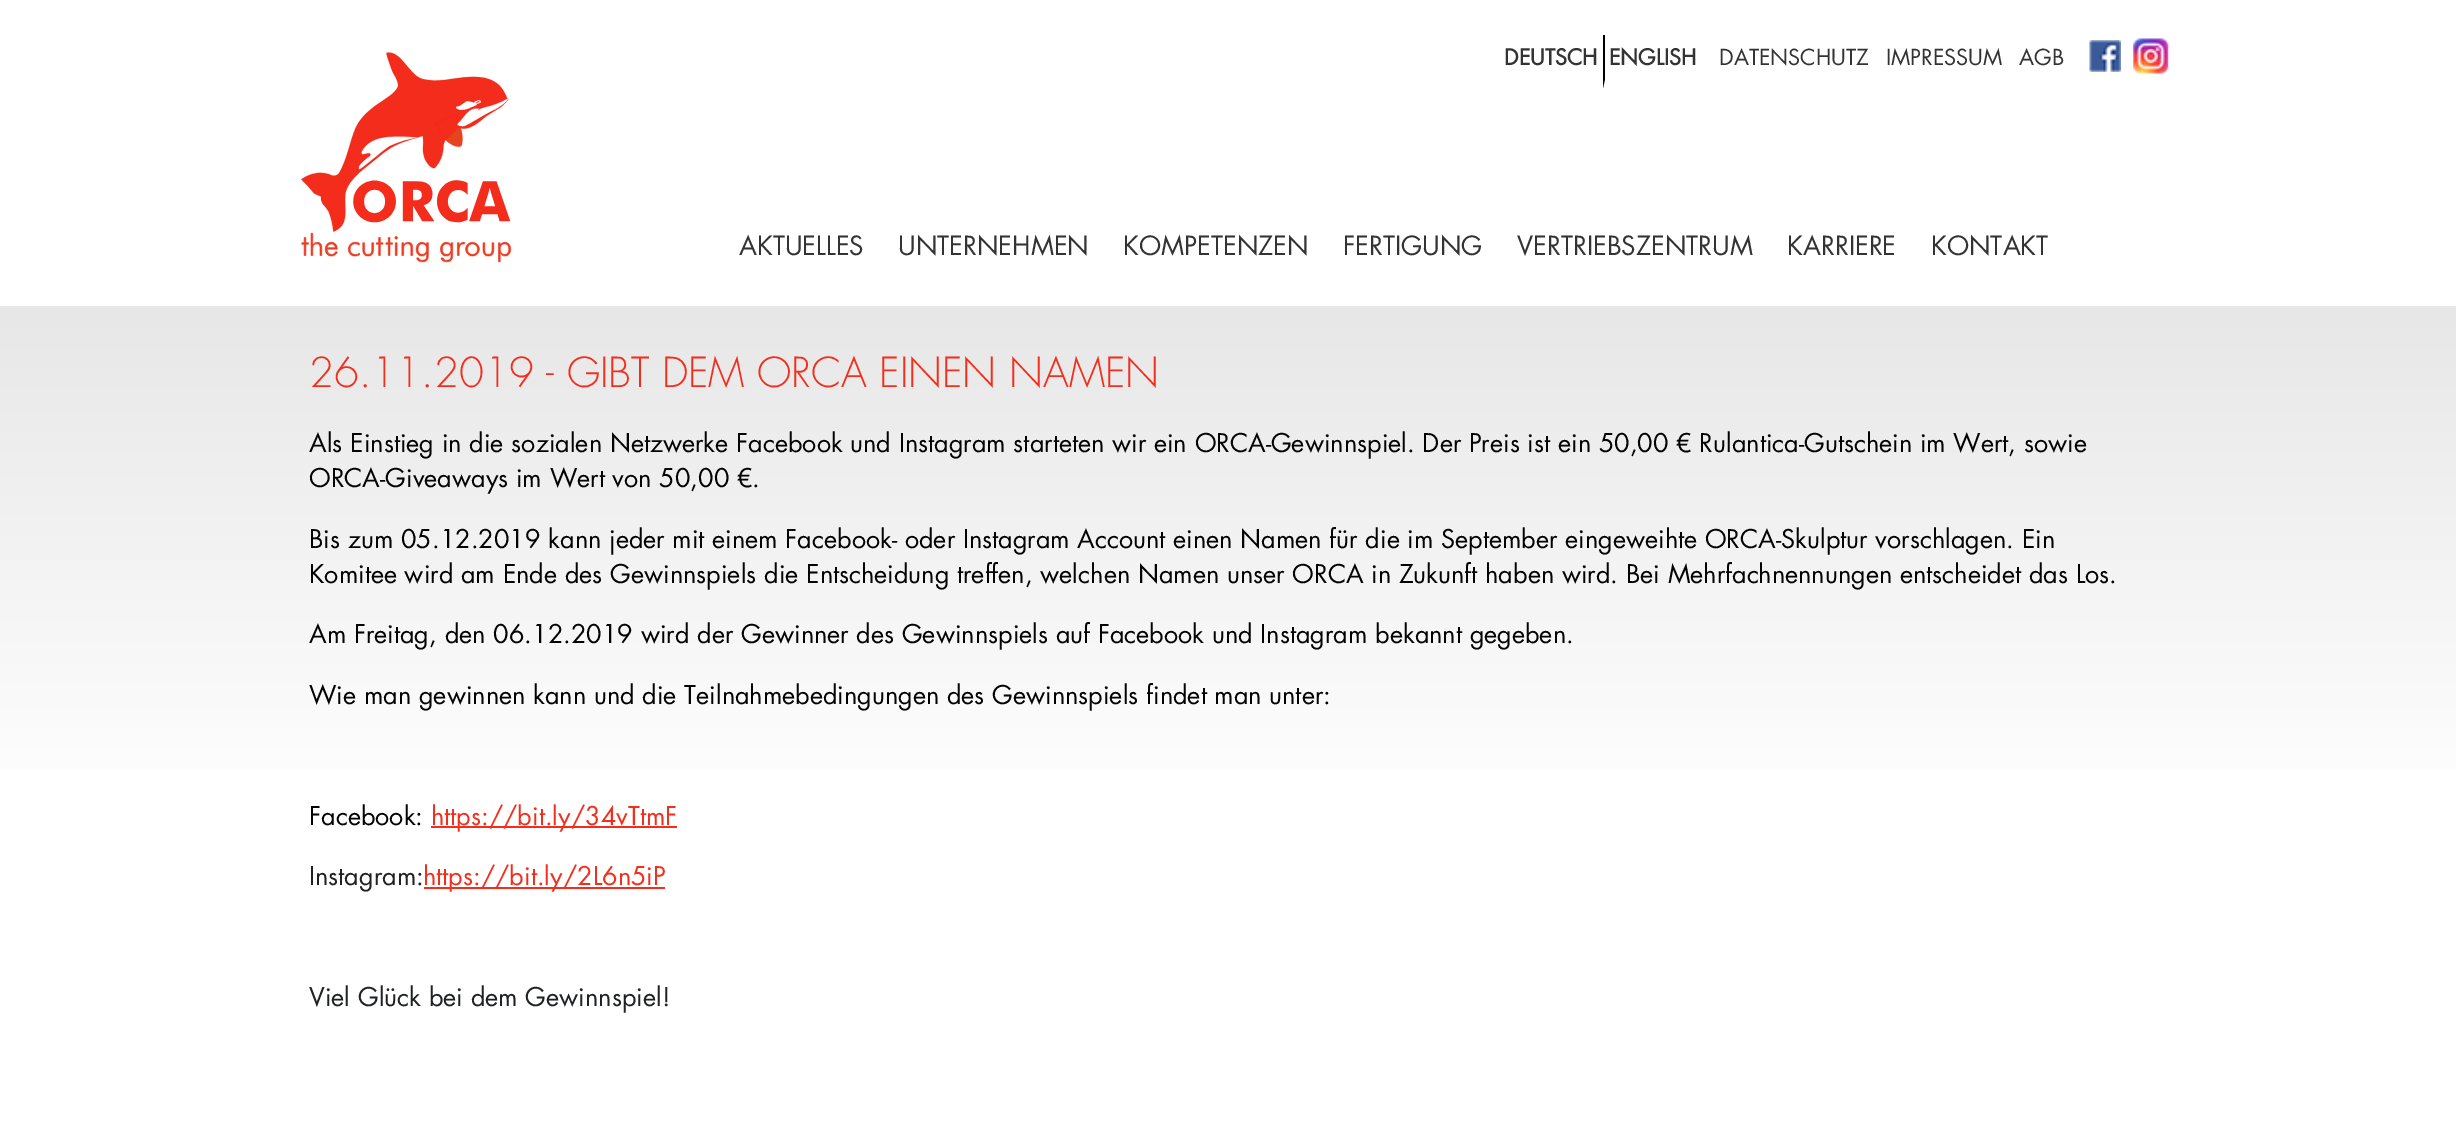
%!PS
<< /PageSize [2456 1144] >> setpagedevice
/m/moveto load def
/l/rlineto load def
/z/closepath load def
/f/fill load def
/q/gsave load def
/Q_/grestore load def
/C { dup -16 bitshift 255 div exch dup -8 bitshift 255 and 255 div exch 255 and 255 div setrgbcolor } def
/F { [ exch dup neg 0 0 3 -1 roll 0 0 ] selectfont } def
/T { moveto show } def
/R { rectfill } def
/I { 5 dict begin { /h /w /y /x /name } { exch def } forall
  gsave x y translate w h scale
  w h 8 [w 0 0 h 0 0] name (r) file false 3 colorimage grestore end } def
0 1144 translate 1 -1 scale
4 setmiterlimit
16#FFFFFF C
0 0 2456 1144 R
(1.rgb) 301 52 211 211 I
/Futura-Bold 21.5 F
16#333333 C
(DEUTSCH) 1504 65 T
16#000000 C
1603 88 m 0 -53 l 2 0 l 0 44 l z f
16#333333 C
(ENGLISH) 1609 65 T
/Futura-Regular 21.5 F
(DATENSCHUTZ) 1719 65 T
(IMPRESSUM) 1886 65 T
(AGB) 2019 65 T
(2.rgb) 2089 40 32 32 I
(3.rgb) 2133 38 36 36 I
/Futura-Regular 25.75 F
(AKTUELLES) 739 255 T
(UNTERNEHMEN) 898 255 T
(KOMPETENZEN) 1123 255 T
(FERTIGUNG) 1343 255 T
(VERTRIEBSZENTRUM) 1517 255 T
(KARRIERE) 1787 255 T
(KONTAKT) 1931 255 T
q 0 306 m 2456 0 l 0 463 l -2456 0 l z clip newpath
<< /ShadingType 2 /ColorSpace /DeviceRGB /Coords [1229 306 1229 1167] /Extend [true true] /Function << /FunctionType 3 /Domain [0 1] /Functions [<< /FunctionType 2 /Domain [0 1] /C0 [.906 .906 .906] /C1 [1 1 1] /N 1 >> << /FunctionType 2 /Domain [0 1] /C0 [1 1 1] /C1 [1 1 1] /N 1 >>] /Bounds [.6] /Encode [0 1 0 1] >> >> shfill Q_
/Futura-Light 40.3 F
16#F42E1D C
(26.11.2019 - GIBT DEM ORCA EINEN NAMEN) 309 387 T
/Futura-Regular 25.2 F
16#030303 C
(Als Einstieg in die sozialen Netzwerke Facebook und Instagram starteten wir ein ORCA-Gewinnspiel. Der Preis ist ein 50,00 € Rulantica-Gutschein im Wert, sowie) 309 452 T
(ORCA-Giveaways im Wert von 50,00 €.) 309 487 T
(Bis zum 05.12.2019 kann jeder mit einem Facebook- oder Instagram Account einen Namen für die im September eingeweihte ORCA-Skulptur vorschlagen. Ein) 309 548 T
(Komitee wird am Ende des Gewinnspiels die Entscheidung treffen, welchen Namen unser ORCA in Zukunft haben wird. Bei Mehrfachnennungen entscheidet das Los.) 309 583 T
(Am Freitag, den 06.12.2019 wird der Gewinner des Gewinnspiels auf Facebook und Instagram bekannt gegeben.) 309 643 T
(Wie man gewinnen kann und die Teilnahmebedingungen des Gewinnspiels findet man unter:) 309 704 T
(Facebook:) 309 825 T
16#F42E1D C
431 826 246 2 R
(https://bit.ly/34vTtmF) 431 825 T
16#1F2123 C
(Instagram:) 309 885 T
16#F42E1D C
424 887 241 2 R
(https://bit.ly/2L6n5iP) 423 885 T
16#1F2123 C
(Viel Glück bei dem Gewinnspiel!) 309 1006 T
showpage
